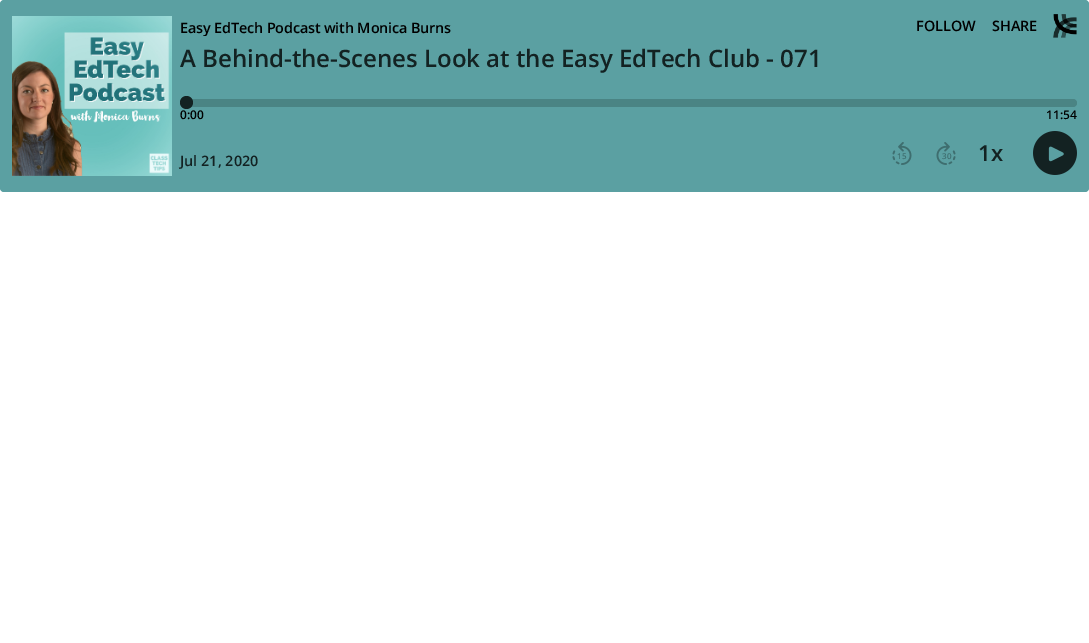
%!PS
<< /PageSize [1089 643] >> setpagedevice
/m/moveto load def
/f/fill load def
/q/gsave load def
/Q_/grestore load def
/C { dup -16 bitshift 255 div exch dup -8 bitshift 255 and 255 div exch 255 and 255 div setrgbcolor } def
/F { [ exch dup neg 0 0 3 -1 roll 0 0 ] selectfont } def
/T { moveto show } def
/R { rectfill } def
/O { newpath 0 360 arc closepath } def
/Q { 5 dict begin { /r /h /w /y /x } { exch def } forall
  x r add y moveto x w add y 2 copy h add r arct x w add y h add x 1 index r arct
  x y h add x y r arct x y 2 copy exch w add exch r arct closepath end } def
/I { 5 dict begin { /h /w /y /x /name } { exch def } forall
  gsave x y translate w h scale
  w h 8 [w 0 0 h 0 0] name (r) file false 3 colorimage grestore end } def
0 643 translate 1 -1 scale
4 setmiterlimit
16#FFFFFF C
0 0 1089 643 R
16#5BA0A2 C
0 0 1089 192 4 Q f
(1.rgb) 12 16 160 160 I
q
180 19 271 17 rectclip
/OpenSans-SemiBold 14.4 F
16#000000 C
180 33 m -.15 0 (Easy EdTech Podcast with Monica Burns) ashow
Q_
/OpenSans-SemiBold 14.4 F
16#000000 C
(FOLLOW) 916 31 T
(SHARE) 992 31 T
(2.rgb) 1053 14 24 24 I
/OpenSans-SemiBold 24 F
16#132222 C
(A Behind-the-Scenes Look at the Easy EdTech Club - 071) 180 67 T
16#4A8484 C
180 99 897 8 4 Q f
16#132222 C
186.5 102.5 6.5 O f
/OpenSans-SemiBold 12 F
16#000000 C
(0:00) 180 119 T
(11:54) 1046 119 T
/OpenSans-SemiBold 14.4 F
16#132222 C
(Jul 21, 2020) 180 166 T
(3.rgb) 892 142 20 23 I
/OpenSans-SemiBold 8 F
16#3E6E6F C
(15) 897 159 T
(4.rgb) 936 142 20 23 I
(30) 942 159 T
/OpenSans-SemiBold 22 F
16#132222 C
(1x) 978 161 T
(5.rgb) 1033 131 44 44 I
showpage
